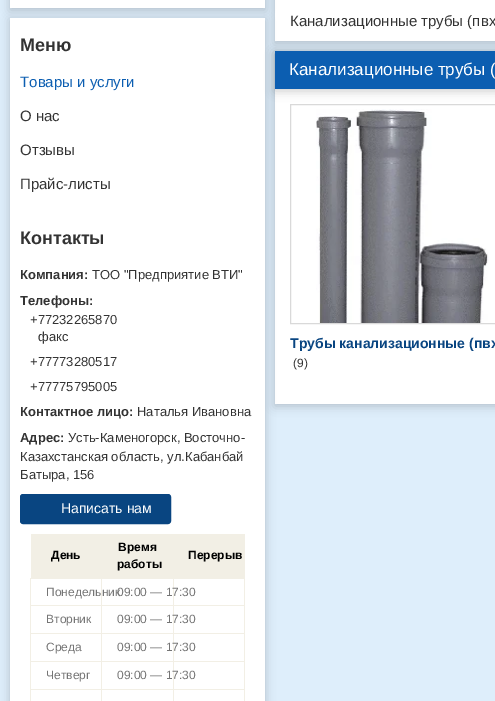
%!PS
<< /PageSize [495 701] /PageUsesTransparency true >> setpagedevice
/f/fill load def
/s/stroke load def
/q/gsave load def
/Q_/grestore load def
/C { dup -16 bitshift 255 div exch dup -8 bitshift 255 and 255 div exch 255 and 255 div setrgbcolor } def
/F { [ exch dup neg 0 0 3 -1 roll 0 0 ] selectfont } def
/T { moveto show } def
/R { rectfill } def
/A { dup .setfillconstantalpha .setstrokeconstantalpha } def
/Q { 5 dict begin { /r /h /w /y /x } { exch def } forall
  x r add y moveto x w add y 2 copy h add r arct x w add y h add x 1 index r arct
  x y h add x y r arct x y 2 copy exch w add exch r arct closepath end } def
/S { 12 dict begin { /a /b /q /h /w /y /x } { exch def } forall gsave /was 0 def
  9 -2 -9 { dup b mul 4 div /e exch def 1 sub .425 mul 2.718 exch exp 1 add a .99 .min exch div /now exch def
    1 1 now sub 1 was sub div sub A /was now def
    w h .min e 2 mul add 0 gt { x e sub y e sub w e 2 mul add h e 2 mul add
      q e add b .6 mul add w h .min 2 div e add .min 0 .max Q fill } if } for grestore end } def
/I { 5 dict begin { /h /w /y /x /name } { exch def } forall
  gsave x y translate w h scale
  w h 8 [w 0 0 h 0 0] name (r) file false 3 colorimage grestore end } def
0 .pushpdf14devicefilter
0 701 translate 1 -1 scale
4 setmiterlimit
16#DEEEFB C
0 0 495 701 R
16#000000 C
275 -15 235 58 0 5 .2 S
16#FFFFFF C
275 0 220 41 R
16#000000 C
10 -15 255 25 0 5 .2 S
16#FFFFFF C
10 0 255 8 R
16#000000 C
275 53 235 353 0 5 .2 S
16#FFFFFF C
275 89 220 315 R
16#000000 C
10 20 255 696 0 5 .2 S
16#FFFFFF C
10 18 255 683 R
/LiberationSans-Bold 18 F
16#333333 C
(Меню) 20 51 T
/LiberationSans-Regular 15 F
16#0C5EB1 C
(Товары и услуги) 20 87 T
16#333333 C
(О нас) 20 121 T
(Отзывы) 20 155 T
(Прайс-листы) 20 189 T
/LiberationSans-Bold 18 F
(Контакты) 20 244 T
/LiberationSans-Bold 13 F
(Компания:) 20 279 T
/LiberationSans-Regular 13 F
(ТОО "Предприятие ВТИ") 92 279 T
/LiberationSans-Bold 13 F
(Телефоны:) 20 305 T
/LiberationSans-Regular 13 F
(+77232265870) 30 324 T
(факс) 38 341 T
(+77773280517) 30 366 T
(+77775795005) 30 391 T
/LiberationSans-Bold 13 F
(Контактное лицо:) 20 416 T
/LiberationSans-Regular 13 F
(Наталья Ивановна) 137 416 T
/LiberationSans-Bold 13 F
(Адрес:) 20 442 T
/LiberationSans-Regular 13 F
(Усть-Каменогорск, Восточно-) 68 442 T
(Казахстанская область, ул.Кабанбай) 20 461 T
(Батыра, 156) 20 479 T
16#094581 C
20.5 494.5 150 29 2.5 Q q f Q_
s
/LiberationSans-Regular 14 F
16#FFFFFF C
(Написать нам) 61 513 T
16#F2EFE5 C
31 534 214 44 R
/LiberationSans-Bold 12 F
16#000000 C
(День) 51 559 T
(Время) 118 551 T
(работы) 117 568 T
(Перерыв) 188 559 T
16#F2EFE5 C
173 578 72 1 R
173 605 72 1 R
173 633 72 1 R
173 661 72 1 R
173 689 72 1 R
173 689 1 12 R
101 689 73 1 R
173 661 1 29 R
101 661 73 1 R
173 633 1 29 R
101 633 73 1 R
173 605 1 29 R
101 605 73 1 R
173 578 1 28 R
101 578 73 1 R
101 689 1 12 R
30 689 72 1 R
101 661 1 29 R
30 661 72 1 R
101 633 1 29 R
30 633 72 1 R
101 605 1 29 R
30 605 72 1 R
101 578 1 28 R
30 578 72 1 R
30 689 1 12 R
30 661 1 29 R
30 633 1 29 R
30 605 1 29 R
30 578 1 28 R
/LiberationSans-Regular 12 F
16#757575 C
(Понедельник) 46 596 T
(09:00 — 17:30) 117 596 T
16#F2EFE5 C
244 689 1 12 R
244 661 1 29 R
244 633 1 29 R
244 605 1 29 R
244 578 1 28 R
16#757575 C
(Вторник) 46 623 T
(09:00 — 17:30) 117 623 T
(Среда) 46 651 T
(09:00 — 17:30) 117 651 T
(Четверг) 46 679 T
(09:00 — 17:30) 117 679 T
/LiberationSans-Regular 15 F
16#333333 C
(Канализационные трубы \(пвх) 290 26 T
16#000000 C
275 53 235 38 0 5 .2 S
16#0C5EB1 C
275 51 220 38 R
/LiberationSans-Regular 17 F
16#FFFFFF C
(Канализационные трубы \() 289 75 T
16#D9D9D9 C
290.5 104.5 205 219 rectstroke
(1.rgb) 316 109 173 214 I
/LiberationSans-Bold 14 F
16#094581 C
(Трубы канализационные \(пвх) 290 348 T
/LiberationSans-Regular 12 F
16#333333 C
(\(9\)) 293 367 T
.poppdf14devicefilter showpage
